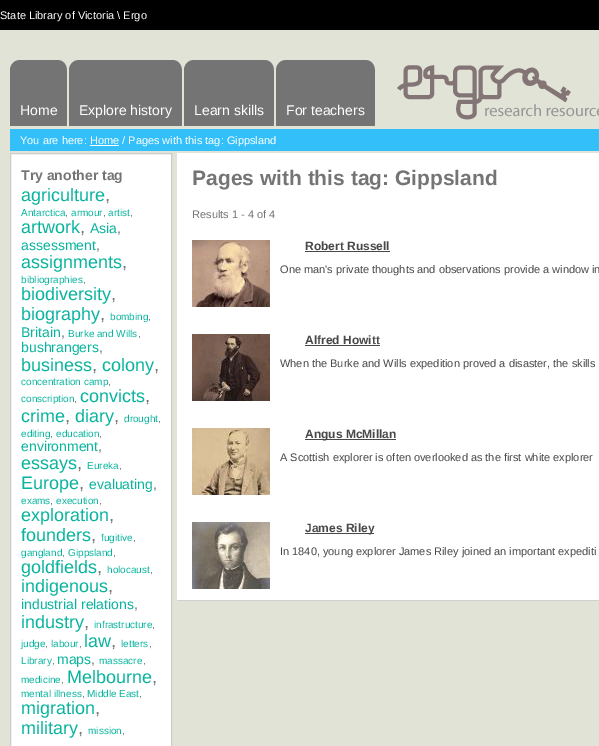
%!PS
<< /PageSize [599 746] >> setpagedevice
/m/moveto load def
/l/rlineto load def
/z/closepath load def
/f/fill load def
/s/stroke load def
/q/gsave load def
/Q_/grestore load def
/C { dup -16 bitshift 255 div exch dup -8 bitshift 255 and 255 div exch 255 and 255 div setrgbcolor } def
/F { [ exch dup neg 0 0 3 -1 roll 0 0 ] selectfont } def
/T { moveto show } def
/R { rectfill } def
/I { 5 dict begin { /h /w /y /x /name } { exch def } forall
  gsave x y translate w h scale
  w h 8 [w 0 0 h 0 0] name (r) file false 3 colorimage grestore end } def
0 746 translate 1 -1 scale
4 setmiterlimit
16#000000 C
0 0 599 746 R
/LiberationSans-Regular 11 F
16#FFFFFF C
(State Library of Victoria \\ Ergo) 0 19 T
16#E2E3D7 C
0 30 599 716 R
(1.rgb) 10 60 10 66 I
(2.rgb) 20 60 47 66 I
/LiberationSans-Regular 14 F
16#FFFFFF C
(Home) 20 115 T
(1.rgb) 69 60 10 66 I
(3.rgb) 79 60 103 66 I
(Explore history) 79 115 T
(1.rgb) 184 60 10 66 I
(4.rgb) 194 60 80 66 I
(Learn skills) 194 115 T
(1.rgb) 276 60 10 66 I
(5.rgb) 286 60 89 66 I
(For teachers) 286 115 T
(6.rgb) 397 65 202 55 I
16#33BFFA C
10 129 589 22 R
/LiberationSans-Regular 11 F
16#FFFFFF C
(You are here: Home / Pages with this tag: Gippsland) 20 144 T
90 145 29 1 R
10.5 153.5 m 161 0 l 0 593 l -161 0 l z q f Q_
16#CCCCCC C
s
/LiberationSans-Bold 14 F
16#747474 C
(Try another tag) 21 180 T
/LiberationSans-Regular 18 F
16#08B49E C
(agriculture) 21 201 T
16#747474 C
(,) 105 201 T
/LiberationSans-Regular 10 F
16#08B49E C
(Antarctica) 21 216 T
16#747474 C
(,) 65 216 T
16#08B49E C
(armour) 71 216 T
16#747474 C
(,) 103 216 T
16#08B49E C
(artist) 108 216 T
16#747474 C
(,) 130 216 T
/LiberationSans-Regular 18 F
16#08B49E C
(artwork) 21 233 T
16#747474 C
(,) 80 233 T
/LiberationSans-Regular 14 F
16#08B49E C
(Asia) 90 233 T
16#747474 C
(,) 117 233 T
16#08B49E C
(assessment) 21 250 T
16#747474 C
(,) 96 250 T
/LiberationSans-Regular 18 F
16#08B49E C
(assignments) 21 268 T
16#747474 C
(,) 122 268 T
/LiberationSans-Regular 10 F
16#08B49E C
(bibliographies) 21 283 T
16#747474 C
(,) 83 283 T
/LiberationSans-Regular 18 F
16#08B49E C
(biodiversity) 21 300 T
16#747474 C
(,) 111 300 T
16#08B49E C
(biography) 21 320 T
16#747474 C
(,) 100 320 T
/LiberationSans-Regular 10 F
16#08B49E C
(bombing) 110 320 T
16#747474 C
(,) 148 320 T
/LiberationSans-Regular 14 F
16#08B49E C
(Britain) 21 337 T
16#747474 C
(,) 61 337 T
/LiberationSans-Regular 10 F
16#08B49E C
(Burke and Wills) 68 337 T
16#747474 C
(,) 138 337 T
/LiberationSans-Regular 14 F
16#08B49E C
(bushrangers) 21 352 T
16#747474 C
(,) 99 352 T
/LiberationSans-Regular 18 F
16#08B49E C
(business) 21 371 T
16#747474 C
(,) 92 371 T
16#08B49E C
(colony) 102 371 T
16#747474 C
(,) 154 371 T
/LiberationSans-Regular 10 F
16#08B49E C
(concentration camp) 21 385 T
16#747474 C
(,) 108 385 T
16#08B49E C
(conscription) 21 402 T
16#747474 C
(,) 74 402 T
/LiberationSans-Regular 18 F
16#08B49E C
(convicts) 80 402 T
16#747474 C
(,) 145 402 T
16#08B49E C
(crime) 21 422 T
16#747474 C
(,) 65 422 T
16#08B49E C
(diary) 75 422 T
16#747474 C
(,) 114 422 T
/LiberationSans-Regular 10 F
16#08B49E C
(drought) 124 422 T
16#747474 C
(,) 158 422 T
16#08B49E C
(editing) 21 437 T
16#747474 C
(,) 50 437 T
16#08B49E C
(education) 56 437 T
16#747474 C
(,) 99 437 T
/LiberationSans-Regular 14 F
16#08B49E C
(environment) 21 451 T
16#747474 C
(,) 98 451 T
/LiberationSans-Regular 18 F
16#08B49E C
(essays) 21 469 T
16#747474 C
(,) 77 469 T
/LiberationSans-Regular 10 F
16#08B49E C
(Eureka) 87 469 T
16#747474 C
(,) 119 469 T
/LiberationSans-Regular 18 F
16#08B49E C
(Europe) 21 489 T
16#747474 C
(,) 79 489 T
/LiberationSans-Regular 14 F
16#08B49E C
(evaluating) 89 489 T
16#747474 C
(,) 153 489 T
/LiberationSans-Regular 10 F
16#08B49E C
(exams) 21 504 T
16#747474 C
(,) 50 504 T
16#08B49E C
(execution) 56 504 T
16#747474 C
(,) 99 504 T
/LiberationSans-Regular 18 F
16#08B49E C
(exploration) 21 521 T
16#747474 C
(,) 109 521 T
16#08B49E C
(founders) 21 541 T
16#747474 C
(,) 91 541 T
/LiberationSans-Regular 10 F
16#08B49E C
(fugitive) 101 541 T
16#747474 C
(,) 133 541 T
16#08B49E C
(gangland) 21 556 T
16#747474 C
(,) 62 556 T
16#08B49E C
(Gippsland) 68 556 T
16#747474 C
(,) 113 556 T
/LiberationSans-Regular 18 F
16#08B49E C
(goldfields) 21 573 T
16#747474 C
(,) 97 573 T
/LiberationSans-Regular 10 F
16#08B49E C
(holocaust) 107 573 T
16#747474 C
(,) 150 573 T
/LiberationSans-Regular 18 F
16#08B49E C
(indigenous) 21 592 T
16#747474 C
(,) 108 592 T
/LiberationSans-Regular 14 F
16#08B49E C
(industrial relations) 21 609 T
16#747474 C
(,) 134 609 T
/LiberationSans-Regular 18 F
16#08B49E C
(industry) 21 628 T
16#747474 C
(,) 84 628 T
/LiberationSans-Regular 10 F
16#08B49E C
(infrastructure) 94 628 T
16#747474 C
(,) 152 628 T
16#08B49E C
(judge) 21 647 T
16#747474 C
(,) 45 647 T
16#08B49E C
(labour) 51 647 T
16#747474 C
(,) 79 647 T
/LiberationSans-Regular 18 F
16#08B49E C
(law) 84 647 T
16#747474 C
(,) 111 647 T
/LiberationSans-Regular 10 F
16#08B49E C
(letters) 121 647 T
16#747474 C
(,) 149 647 T
16#08B49E C
(Library) 21 664 T
16#747474 C
(,) 52 664 T
/LiberationSans-Regular 14 F
16#08B49E C
(maps) 57 664 T
16#747474 C
(,) 91 664 T
/LiberationSans-Regular 10 F
16#08B49E C
(massacre) 99 664 T
16#747474 C
(,) 143 664 T
16#08B49E C
(medicine) 21 683 T
16#747474 C
(,) 61 683 T
/LiberationSans-Regular 18 F
16#08B49E C
(Melbourne) 67 683 T
16#747474 C
(,) 152 683 T
/LiberationSans-Regular 10 F
16#08B49E C
(mental illness) 21 697 T
16#747474 C
(,) 82 697 T
16#08B49E C
(Middle East) 87 697 T
16#747474 C
(,) 139 697 T
/LiberationSans-Regular 18 F
16#08B49E C
(migration) 21 714 T
16#747474 C
(,) 95 714 T
16#08B49E C
(military) 21 734 T
16#747474 C
(,) 78 734 T
/LiberationSans-Regular 10 F
16#08B49E C
(mission) 88 734 T
16#747474 C
(,) 122 734 T
16#FFFFFF C
177 153 422 447 R
16#D0D0D0 C
177 600 422 1 R
/LiberationSans-Bold 21 F
16#747474 C
(Pages with this tag: Gippsland) 192 185 T
/LiberationSans-Regular 11 F
(Results 1 - 4 of 4) 192 218 T
(7.rgb) 192 240 78 67 I
/LiberationSans-Bold 12 F
16#484848 C
(Robert Russell) 305 250 T
305 251 85 1 R
/LiberationSans-Regular 11 F
(One man's private thoughts and observations provide a window in) 280 273 T
(8.rgb) 192 334 78 67 I
/LiberationSans-Bold 12 F
(Alfred Howitt) 305 344 T
305 345 75 1 R
/LiberationSans-Regular 11 F
(When the Burke and Wills expedition proved a disaster, the skills) 280 367 T
(9.rgb) 192 428 78 67 I
305 439 91 1 R
/LiberationSans-Bold 12 F
(Angus McMillan) 305 438 T
/LiberationSans-Regular 11 F
(A Scottish explorer is often overlooked as the first white explorer) 280 461 T
(10.rgb) 192 522 78 67 I
305 533 69 1 R
/LiberationSans-Bold 12 F
(James Riley) 305 532 T
/LiberationSans-Regular 11 F
(In 1840, young explorer James Riley joined an important expediti) 280 555 T
showpage
